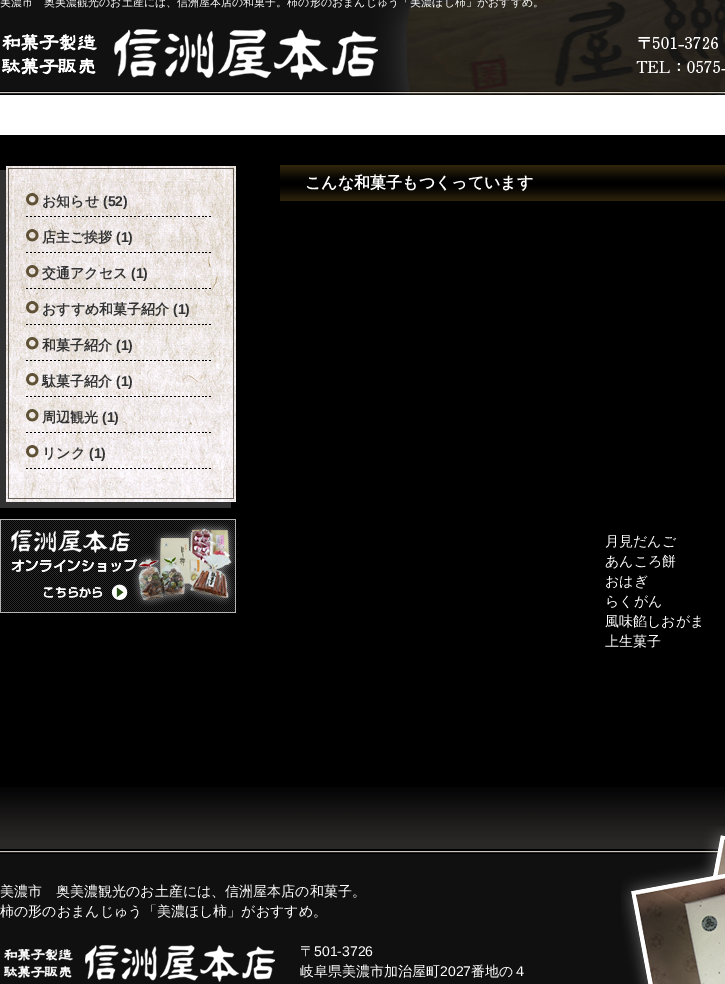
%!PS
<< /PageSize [725 984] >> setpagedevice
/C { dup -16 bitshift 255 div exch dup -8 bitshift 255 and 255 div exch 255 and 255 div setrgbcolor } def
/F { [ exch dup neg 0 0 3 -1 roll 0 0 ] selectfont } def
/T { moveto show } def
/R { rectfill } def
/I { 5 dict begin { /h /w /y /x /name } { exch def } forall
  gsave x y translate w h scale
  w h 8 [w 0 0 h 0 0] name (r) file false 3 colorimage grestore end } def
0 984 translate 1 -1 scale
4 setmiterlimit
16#000000 C
0 0 725 984 R
(1.rgb) 0 0 725 135 I
/WenQuanYiZenHei-Medium 11 F
16#FFFFFF C
(美濃市　奥美濃観光のお土産には、信洲屋本店の和菓子。柿の形のおまんじゅう「美濃ほし柿」がおすすめ。) 0 6 T
(2.rgb) 2 29 376 51 I
(3.rgb) 636 36 89 37 I
(4.rgb) 0 166 236 15 I
(5.rgb) 0 181 236 327 I
(6.rgb) 26 193 185 24 I
/WenQuanYiZenHei-Bold 14 F
16#333333 C
(お知らせ) 42 206 T
/LiberationSans-Bold 14 F
(\(52\)) 103 206 T
(7.rgb) 26 229 185 24 I
/WenQuanYiZenHei-Bold 14 F
(店主ご挨拶) 42 242 T
/LiberationSans-Bold 14 F
(\(1\)) 116 242 T
(8.rgb) 26 265 185 24 I
/WenQuanYiZenHei-Bold 14 F
(交通アクセス) 42 278 T
/LiberationSans-Bold 14 F
(\(1\)) 131 278 T
(9.rgb) 26 301 185 24 I
/WenQuanYiZenHei-Bold 14 F
(おすすめ和菓子紹介) 42 314 T
/LiberationSans-Bold 14 F
(\(1\)) 173 314 T
(10.rgb) 26 337 185 24 I
/WenQuanYiZenHei-Bold 14 F
(和菓子紹介) 42 350 T
/LiberationSans-Bold 14 F
(\(1\)) 116 350 T
(11.rgb) 26 373 185 24 I
/WenQuanYiZenHei-Bold 14 F
(駄菓子紹介) 42 386 T
/LiberationSans-Bold 14 F
(\(1\)) 116 386 T
(12.rgb) 26 409 185 24 I
/WenQuanYiZenHei-Bold 14 F
(周辺観光) 42 422 T
/LiberationSans-Bold 14 F
(\(1\)) 102 422 T
(13.rgb) 26 445 185 24 I
/WenQuanYiZenHei-Bold 14 F
(リンク) 42 458 T
/LiberationSans-Bold 14 F
(\(1\)) 89 458 T
(14.rgb) 0 519 236 94 I
(15.rgb) 280 165 445 36 I
/WenQuanYiZenHei-Bold 16 F
16#FFFFFF C
(こんな和菓子もつくっています) 305 188 T
/WenQuanYiZenHei-Medium 14 F
(月見だんご) 605 546 T
(あんころ餅) 605 566 T
(おはぎ) 605 586 T
(らくがん) 605 606 T
(風味餡しおがま) 605 626 T
(上生菓子) 605 646 T
(16.rgb) 0 787 725 197 I
(17.rgb) 621 826 104 158 I
(美濃市　奥美濃観光のお土産には、信洲屋本店の和菓子。) 0 896 T
(柿の形のおまんじゅう「美濃ほし柿」がおすすめ。) 0 916 T
(18.rgb) 4 945 271 37 I
(〒) 300 956 T
/LiberationSans-Regular 14 F
(501-3726) 314 956 T
/WenQuanYiZenHei-Medium 14 F
(岐阜県美濃市加治屋町) 300 976 T
/LiberationSans-Regular 14 F
(2027) 440 976 T
/WenQuanYiZenHei-Medium 14 F
(番地の４) 471 976 T
showpage
